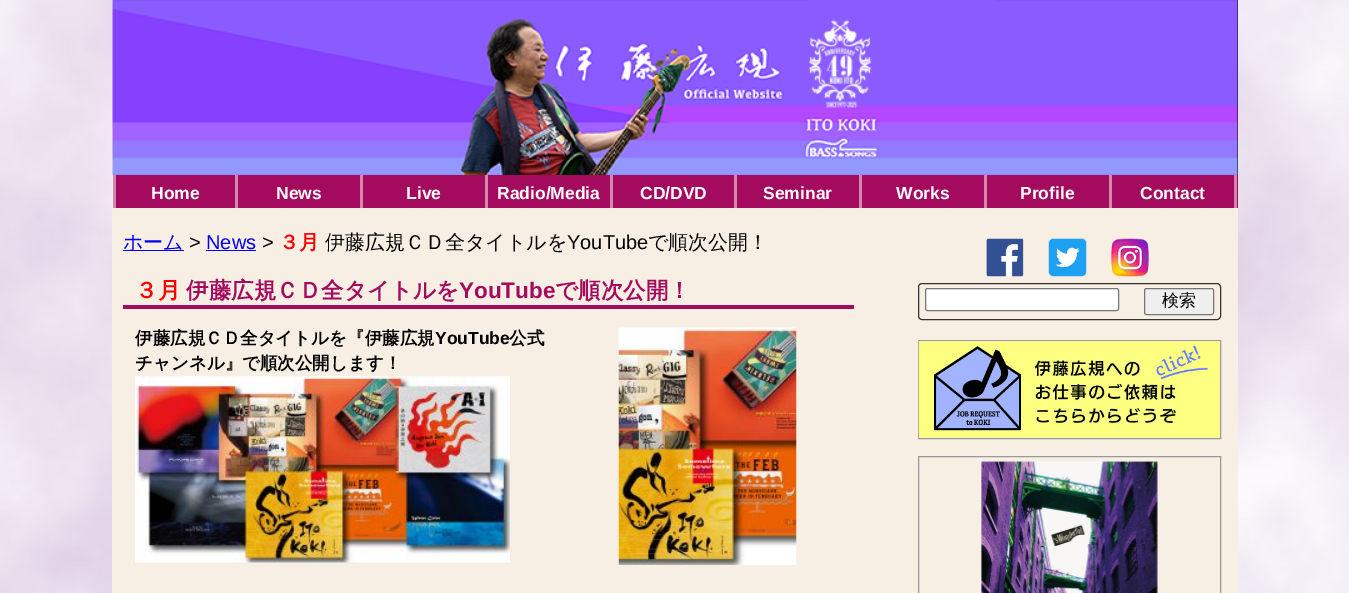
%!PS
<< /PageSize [1349 593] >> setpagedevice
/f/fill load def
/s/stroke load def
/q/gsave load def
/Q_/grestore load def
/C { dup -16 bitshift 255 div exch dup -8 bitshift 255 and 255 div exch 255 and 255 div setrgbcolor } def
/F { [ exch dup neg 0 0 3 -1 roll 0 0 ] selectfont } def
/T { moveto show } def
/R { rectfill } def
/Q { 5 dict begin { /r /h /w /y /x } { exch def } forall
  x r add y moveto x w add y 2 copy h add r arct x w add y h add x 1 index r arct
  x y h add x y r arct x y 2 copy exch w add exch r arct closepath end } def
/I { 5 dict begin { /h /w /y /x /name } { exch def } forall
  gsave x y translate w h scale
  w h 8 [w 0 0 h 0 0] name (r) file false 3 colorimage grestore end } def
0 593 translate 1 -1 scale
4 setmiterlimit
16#FFFFFF C
0 0 1349 593 R
(1.rgb) 0 0 1349 593 I
16#F7EFE4 C
112 0 1126 593 R
16#000000 C
113 0 1125 175 R
(2.rgb) 112 0 1126 175 I
16#A40B5E C
116 175 1122 33 R
16#D285AF C
235 175 3 33 R
113 175 3 33 R
/LiberationSans-Bold 17.5 F
16#FFFFFF C
(Home) 151 199 T
16#D285AF C
360 175 3 33 R
16#FFFFFF C
(News) 276 199 T
16#D285AF C
485 175 3 33 R
16#FFFFFF C
(Live) 406 199 T
16#D285AF C
610 175 3 33 R
16#FFFFFF C
(Radio/Media) 497 199 T
16#D285AF C
734 175 3 33 R
16#FFFFFF C
(CD/DVD) 640 199 T
16#D285AF C
859 175 3 33 R
16#FFFFFF C
(Seminar) 763 199 T
16#D285AF C
984 175 3 33 R
16#FFFFFF C
(Works) 896 199 T
16#D285AF C
1109 175 3 33 R
16#FFFFFF C
(Profile) 1020 199 T
16#D285AF C
1234 175 3 33 R
16#FFFFFF C
(Contact) 1140 199 T
16#0000EE C
123 250 61 1 R
/WenQuanYiZenHei-Medium 20 F
(ホーム) 123 249 T
/LiberationSans-Regular 20 F
16#000000 C
(>) 189 249 T
16#0000EE C
(News) 206 249 T
206 250 50 1 R
16#000000 C
(>) 262 249 T
/WenQuanYiZenHei-Bold 20 F
16#FF0000 C
(３月) 279 249 T
/WenQuanYiZenHei-Medium 20 F
16#000000 C
(伊藤広規ＣＤ全タイトルを) 325 249 T
/LiberationSans-Regular 20 F
(YouTube) 567 249 T
/WenQuanYiZenHei-Medium 20 F
(で順次公開！) 648 249 T
16#A40B5E C
123 305 731 4 R
/WenQuanYiZenHei-Bold 22.5 F
16#FF0000 C
(３月) 135 298 T
16#A40B5E C
(伊藤広規ＣＤ全タイトルを) 186 298 T
/LiberationSans-Bold 22.5 F
(YouTube) 459 298 T
/WenQuanYiZenHei-Bold 22.5 F
(で順次公開！) 555 298 T
/WenQuanYiZenHei-Bold 17.5 F
16#000000 C
(伊藤広規ＣＤ全タイトルを『伊藤広規) 135 344 T
/LiberationSans-Bold 17.5 F
(YouTube) 435 344 T
/WenQuanYiZenHei-Bold 17.5 F
(公式) 509 344 T
(チャンネル』で順次公開します！) 135 369 T
(3.rgb) 135 376 375 187 I
(4.rgb) 618 327 179 238 I
(5.rgb) 986 238 38 39 I
(6.rgb) 1048 238 39 39 I
(7.rgb) 1111 238 38 39 I
16#333333 C
918.5 283.5 302 36 3.5 Q s
16#FFFFFF C
925.5 288.5 193 22 2 Q q f Q_
16#767676 C
s
16#EFEFEF C
1144.5 288.5 69 26 2 Q q f Q_
16#767676 C
s
/WenQuanYiZenHei-Medium 17 F
16#000000 C
(検索) 1162 306 T
16#999999 C
918.5 340.5 302 98 rectstroke
(8.rgb) 918 341 302 97 I
918.5 456.5 302 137 rectstroke
(9.rgb) 981 461 177 132 I
showpage
